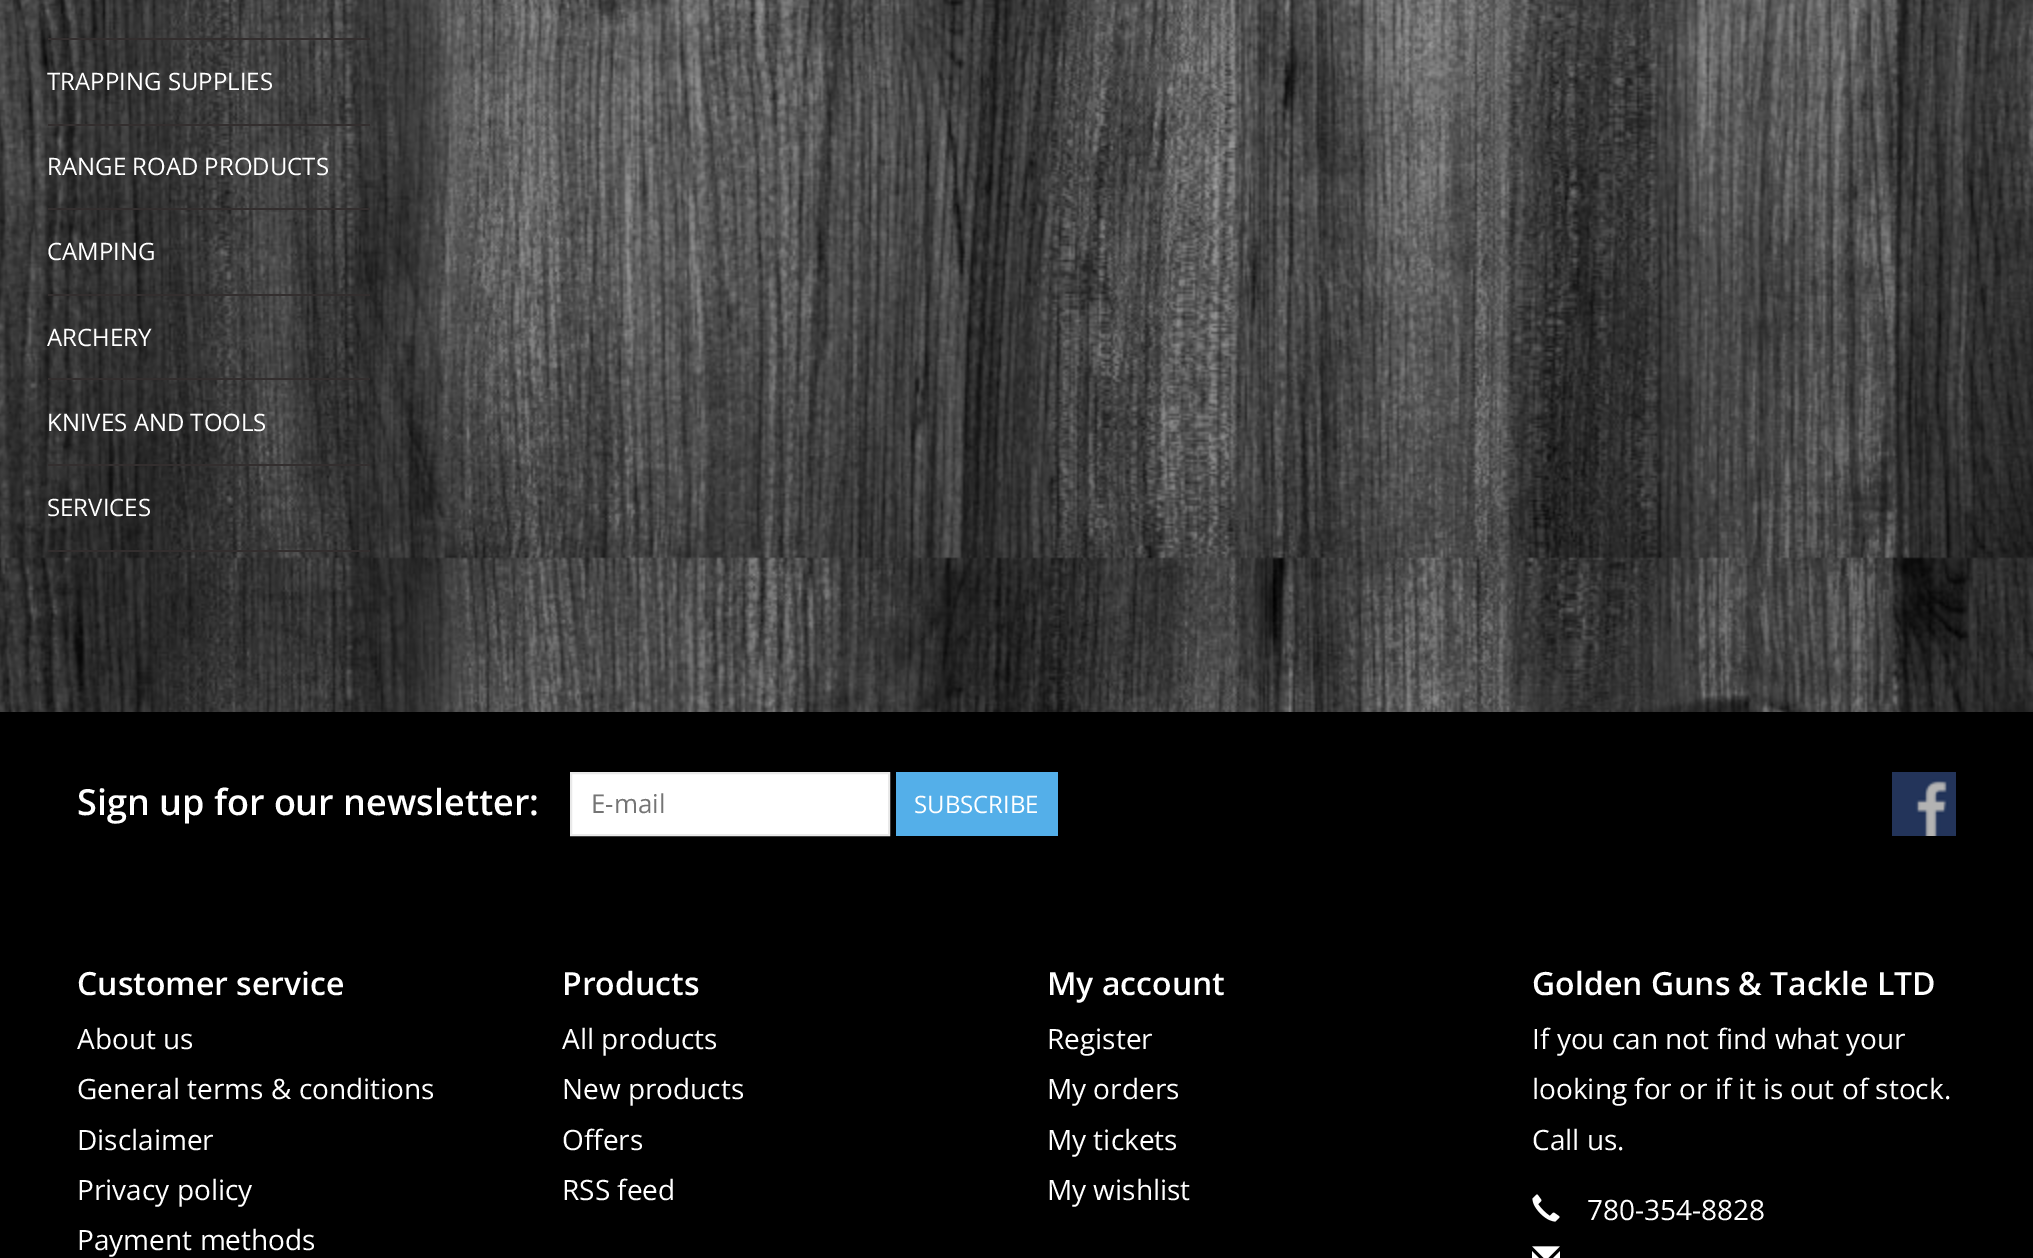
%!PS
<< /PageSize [2033 1258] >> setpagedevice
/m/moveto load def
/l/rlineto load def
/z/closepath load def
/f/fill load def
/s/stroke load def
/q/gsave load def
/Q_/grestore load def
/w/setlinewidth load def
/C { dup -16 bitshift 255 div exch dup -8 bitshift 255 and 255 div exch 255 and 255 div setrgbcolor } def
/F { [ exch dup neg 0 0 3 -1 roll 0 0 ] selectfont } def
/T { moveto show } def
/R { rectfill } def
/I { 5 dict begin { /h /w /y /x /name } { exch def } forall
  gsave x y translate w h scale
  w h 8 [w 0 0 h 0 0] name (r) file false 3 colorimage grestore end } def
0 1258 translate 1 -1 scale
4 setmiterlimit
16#FFFFFF C
0 0 2033 1258 R
(1.rgb) 0 0 2033 712 I
16#332E2E C
48 38 322 2 R
48 124 322 2 R
/OpenSans-Regular 24 F
16#FFFFFF C
(TRAPPING SUPPLIES) 47 90 T
16#332E2E C
48 208 322 2 R
16#FFFFFF C
(RANGE ROAD PRODUCTS) 47 175 T
16#332E2E C
48 294 322 2 R
16#FFFFFF C
(CAMPING) 47 260 T
16#332E2E C
48 378 322 2 R
16#FFFFFF C
(ARCHERY) 47 346 T
16#332E2E C
48 464 322 2 R
16#FFFFFF C
(KNIVES AND TOOLS) 47 431 T
16#332E2E C
48 550 322 2 R
16#FFFFFF C
(SERVICES) 47 516 T
16#000000 C
0 712 2033 546 R
/OpenSans-SemiBold 36 F
16#FFFFFF C
(Sign up for our newsletter:) 77 815 T
571 773 m 318 0 l 0 62 l -318 0 l z q f Q_
16#E9E9E9 C
2 w
s
/OpenSans-Regular 26 F
16#757575 C
(E-mail) 591 813 T
16#54AFE9 C
896 772 162 64 R
/OpenSans-Regular 24 F
16#FFFFFF C
(SUBSCRIBE) 914 813 T
(2.rgb) 1892 772 64 64 I
/OpenSans-SemiBold 32 F
(Customer service) 77 995 T
/OpenSans-Regular 28 F
(About us) 77 1049 T
(General terms & conditions) 77 1099 T
(Disclaimer) 77 1150 T
(Privacy policy) 77 1200 T
(Payment methods) 77 1250 T
/OpenSans-SemiBold 32 F
(Products) 562 995 T
/OpenSans-Regular 28 F
(All products) 562 1049 T
(New products) 562 1099 T
(Offers) 562 1150 T
(RSS feed) 562 1200 T
/OpenSans-SemiBold 32 F
(My account) 1047 995 T
/OpenSans-Regular 28 F
(Register) 1047 1049 T
(My orders) 1047 1099 T
(My tickets) 1047 1150 T
(My wishlist) 1047 1200 T
/OpenSans-SemiBold 32 F
(Golden Guns & Tackle LTD) 1532 995 T
/OpenSans-Regular 28 F
(If you can not find what your) 1532 1049 T
(looking for or if it is out of stock.) 1532 1099 T
(Call us.) 1532 1150 T
(3.rgb) 1532 1194 28 28 I
(780-354-8828) 1587 1220 T
(4.rgb) 1532 1246 28 12 I
showpage
